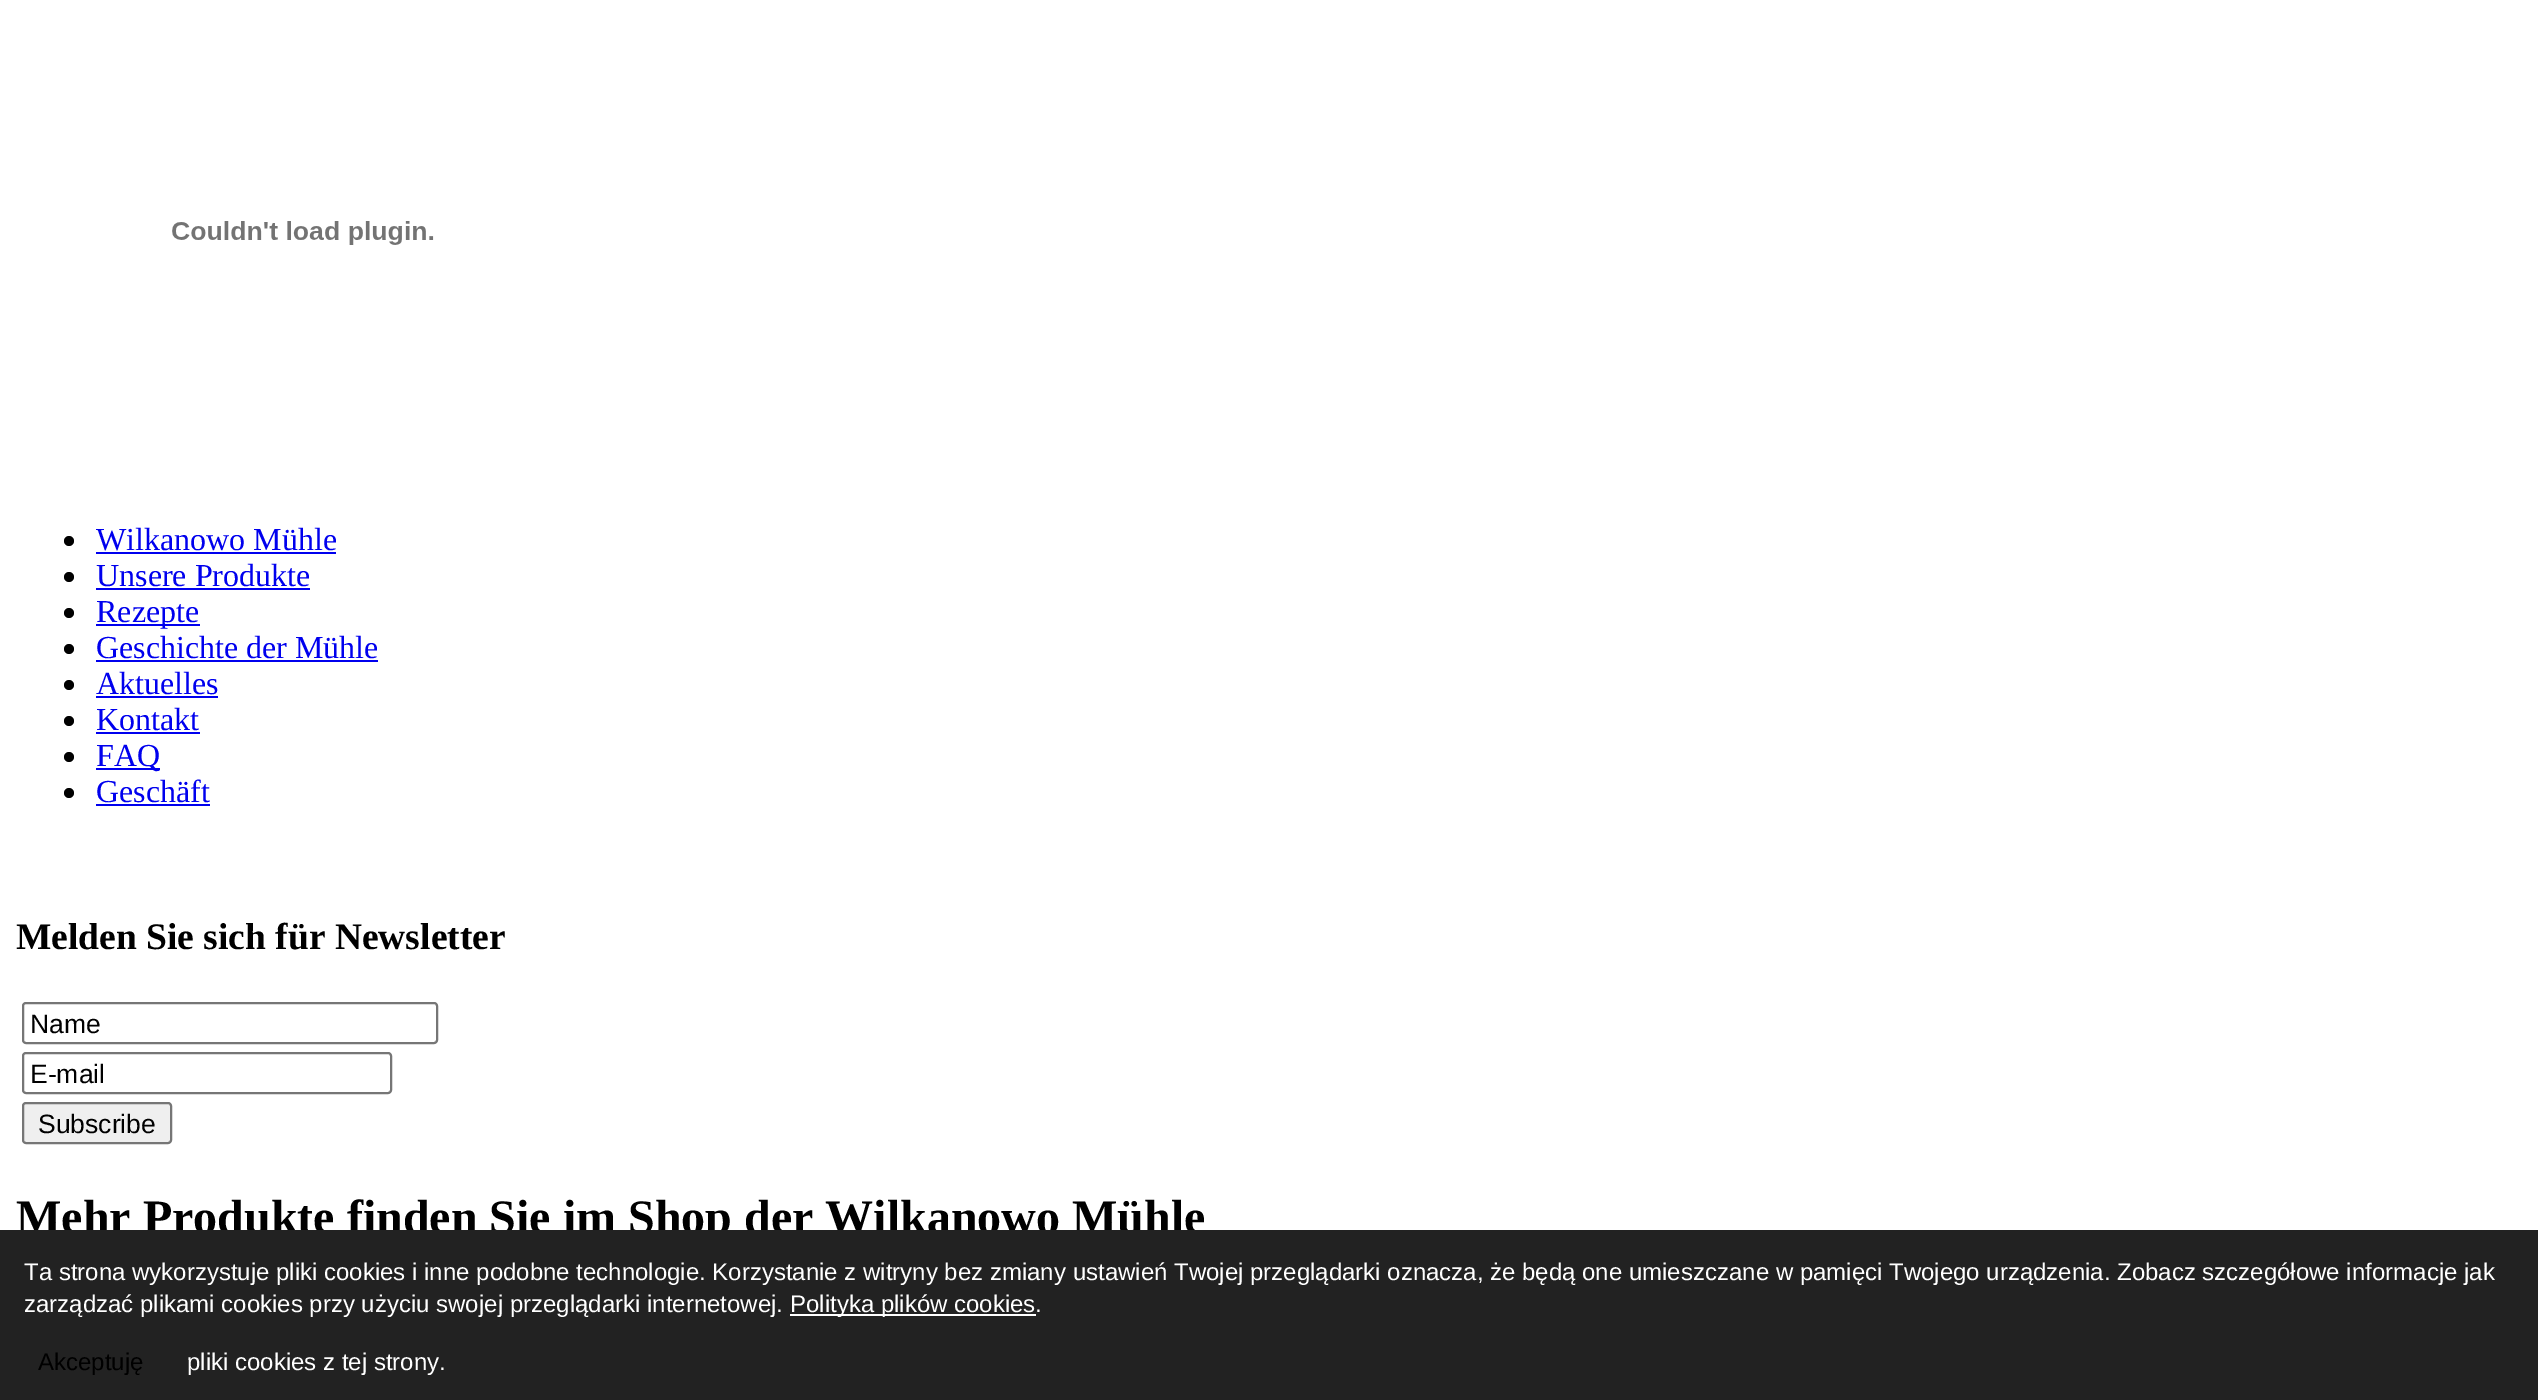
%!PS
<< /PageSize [2538 1400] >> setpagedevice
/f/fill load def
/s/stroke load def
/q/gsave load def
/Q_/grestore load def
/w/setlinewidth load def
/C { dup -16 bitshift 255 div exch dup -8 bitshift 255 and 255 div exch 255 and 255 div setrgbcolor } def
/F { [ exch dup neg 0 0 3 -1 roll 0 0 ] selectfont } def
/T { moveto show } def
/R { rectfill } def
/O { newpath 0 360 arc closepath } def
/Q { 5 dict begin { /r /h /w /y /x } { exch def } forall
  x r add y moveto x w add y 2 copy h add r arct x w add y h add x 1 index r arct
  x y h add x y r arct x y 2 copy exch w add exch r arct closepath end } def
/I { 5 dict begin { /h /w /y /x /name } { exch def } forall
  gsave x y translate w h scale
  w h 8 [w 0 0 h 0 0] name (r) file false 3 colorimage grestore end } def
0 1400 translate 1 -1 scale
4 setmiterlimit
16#FFFFFF C
0 0 2538 1400 R
(1.rgb) 172 221 262 24 I
16#000000 C
69 541 5 O f
/LiberationSerif-Regular 32 F
16#0000EE C
(Wilkanowo Mühle) 96 550 T
96 552 240 2 R
16#000000 C
69 577 5 O f
16#0000EE C
(Unsere Produkte) 96 586 T
96 588 214 2 R
16#000000 C
69 613 5 O f
16#0000EE C
96 624 104 2 R
(Rezepte) 96 622 T
16#000000 C
69 649 5 O f
16#0000EE C
(Geschichte der Mühle) 96 658 T
96 660 282 2 R
16#000000 C
69 685 5 O f
16#0000EE C
(Aktuelles) 96 694 T
96 696 122 2 R
16#000000 C
69 721 5 O f
16#0000EE C
(Kontakt) 96 730 T
96 732 104 2 R
16#000000 C
69 757 5 O f
16#0000EE C
96 768 64 2 R
(FAQ) 96 766 T
16#000000 C
69 793 5 O f
16#0000EE C
(Geschäft) 96 802 T
96 804 114 2 R
/LiberationSerif-Bold 37.5 F
16#000000 C
(Melden Sie sich für Newsletter) 16 949 T
16#767676 C
2 w
23 1003 414 40 3 Q s
/LiberationSans-Regular 26.5 F
16#000000 C
(Name) 30 1033 T
16#767676 C
23 1053 368 40 3 Q s
16#000000 C
(E-mail) 30 1083 T
16#EFEFEF C
23 1103 148 40 3 Q q f Q_
16#767676 C
s
16#000000 C
(Subscribe) 38 1133 T
/LiberationSerif-Bold 48 F
(Mehr Produkte finden Sie im Shop der Wilkanowo Mühle) 16 1233 T
16#222222 C
0 1230 2538 170 R
/LiberationSans-Regular 24 F
16#FFFFFF C
(Ta strona wykorzystuje pliki cookies i inne podobne technologie. Korzystanie z witryny bez zmiany ustawień Twojej przeglądarki oznacza, że będą one umieszczane w pamięci Twojego urządzenia. Zobacz szczegółowe informacje jak) 24 1280 T
(zarządzać plikami cookies przy użyciu swojej przeglądarki internetowej.) 24 1312 T
790 1314 246 2 R
(Polityka plików cookies.) 790 1312 T
16#000000 C
(Akceptuję) 38 1370 T
16#FFFFFF C
(pliki cookies z tej strony.) 187 1370 T
showpage
